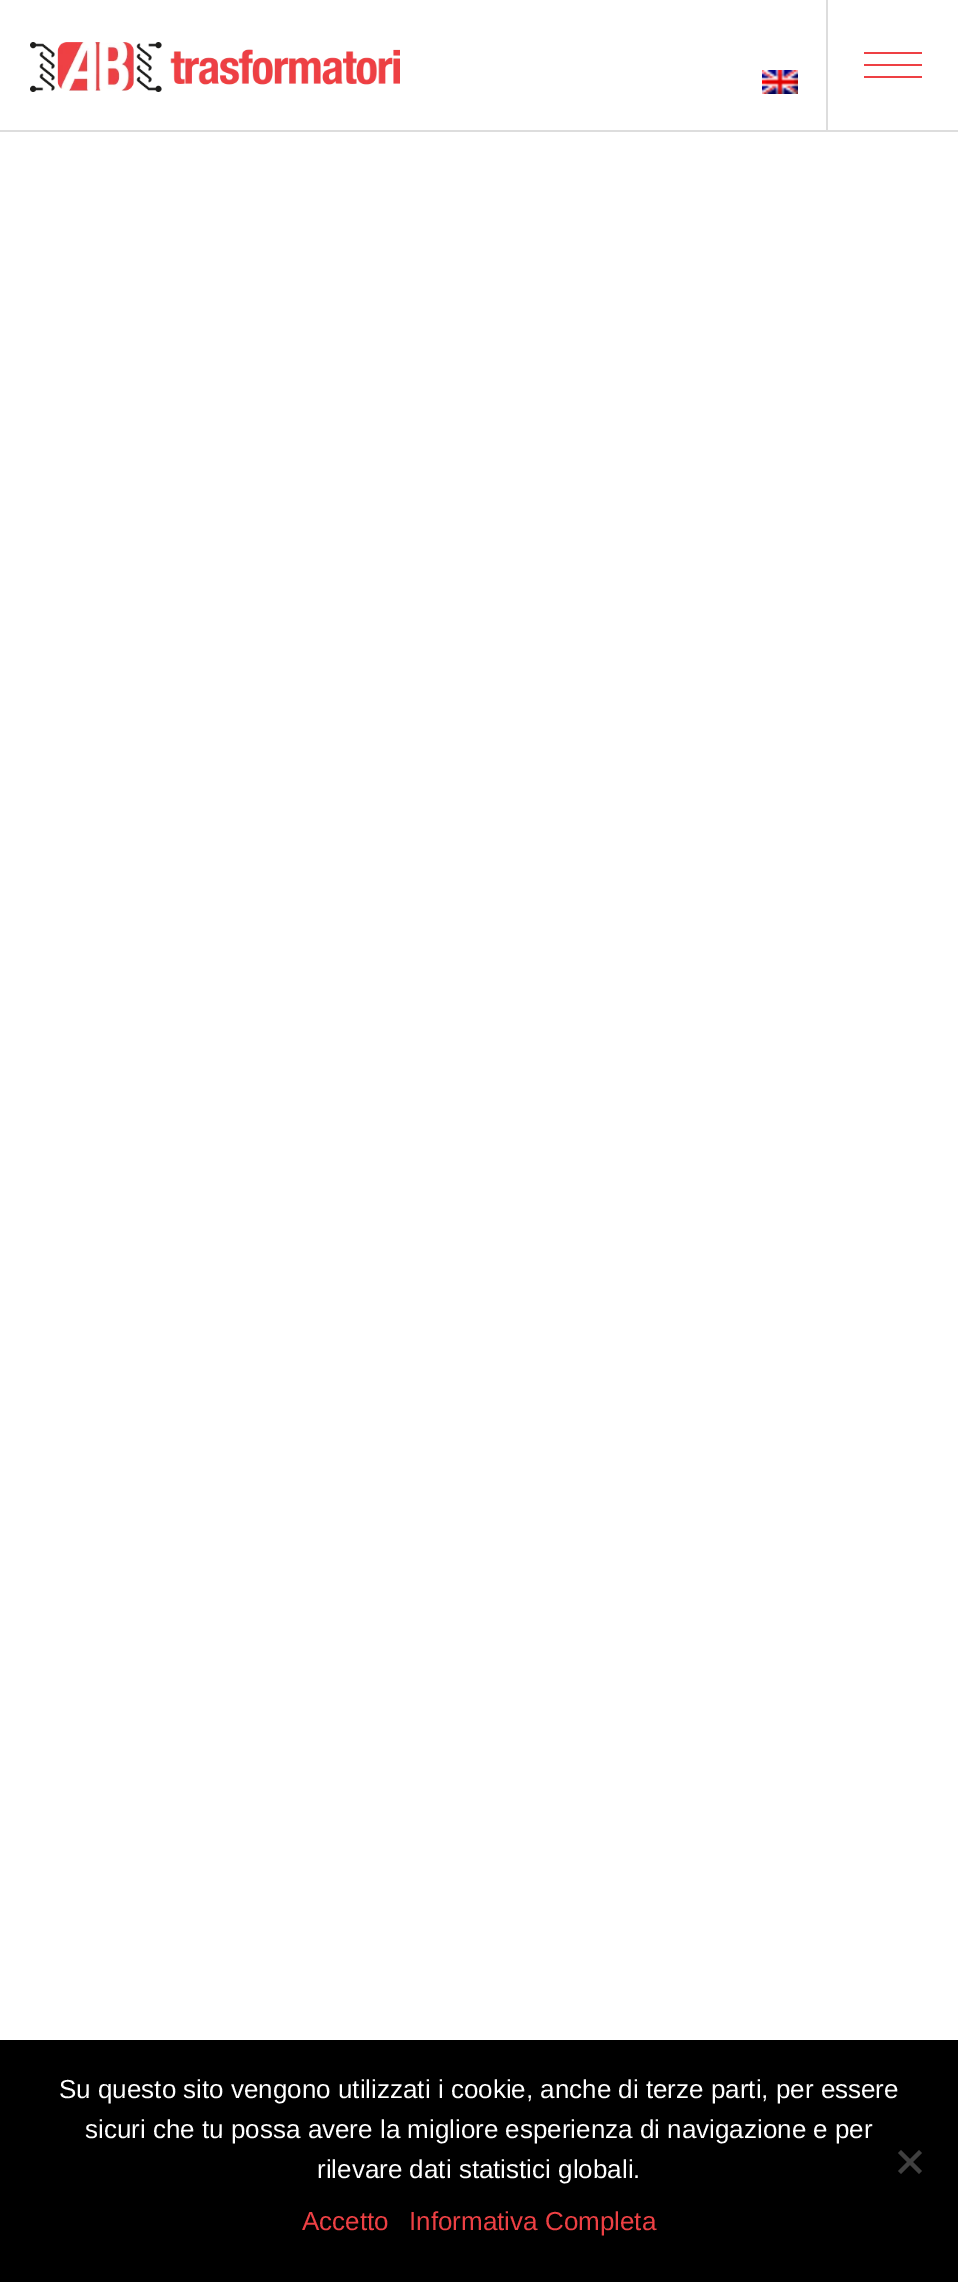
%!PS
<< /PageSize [958 2282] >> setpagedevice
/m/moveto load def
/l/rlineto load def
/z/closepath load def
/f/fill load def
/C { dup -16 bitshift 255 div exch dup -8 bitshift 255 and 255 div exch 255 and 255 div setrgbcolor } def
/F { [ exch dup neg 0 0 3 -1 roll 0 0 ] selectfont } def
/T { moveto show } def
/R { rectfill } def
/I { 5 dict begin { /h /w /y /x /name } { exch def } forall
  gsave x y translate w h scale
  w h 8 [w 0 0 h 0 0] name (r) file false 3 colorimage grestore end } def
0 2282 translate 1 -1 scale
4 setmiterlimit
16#FFFFFF C
0 0 958 2282 R
16#DDDDDD C
0 130 958 2 R
826 0 2 132 R
16#EE4044 C
864 64 58 2 R
864 52 58 2 R
864 76 58 2 R
(1.rgb) 30 42 370 50 I
(2.rgb) 762 70 36 24 I
16#000000 C
0 2040 958 242 R
/LiberationSans-Regular 26 F
16#FFFFFF C
(Su questo sito vengono utilizzati i cookie, anche di terze parti, per essere) 59 2098 T
(sicuri che tu possa avere la migliore esperienza di navigazione e per) 85 2138 T
(rilevare dati statistici globali.) 317 2178 T
16#404040 C
919 2150 m 3 3 l -21 21 l -3 -3 l z f
898 2153 m 3 -3 l 21 21 l -3 3 l z f
16#EE4044 C
(Accetto) 302 2230 T
(Informativa Completa) 409 2230 T
showpage
